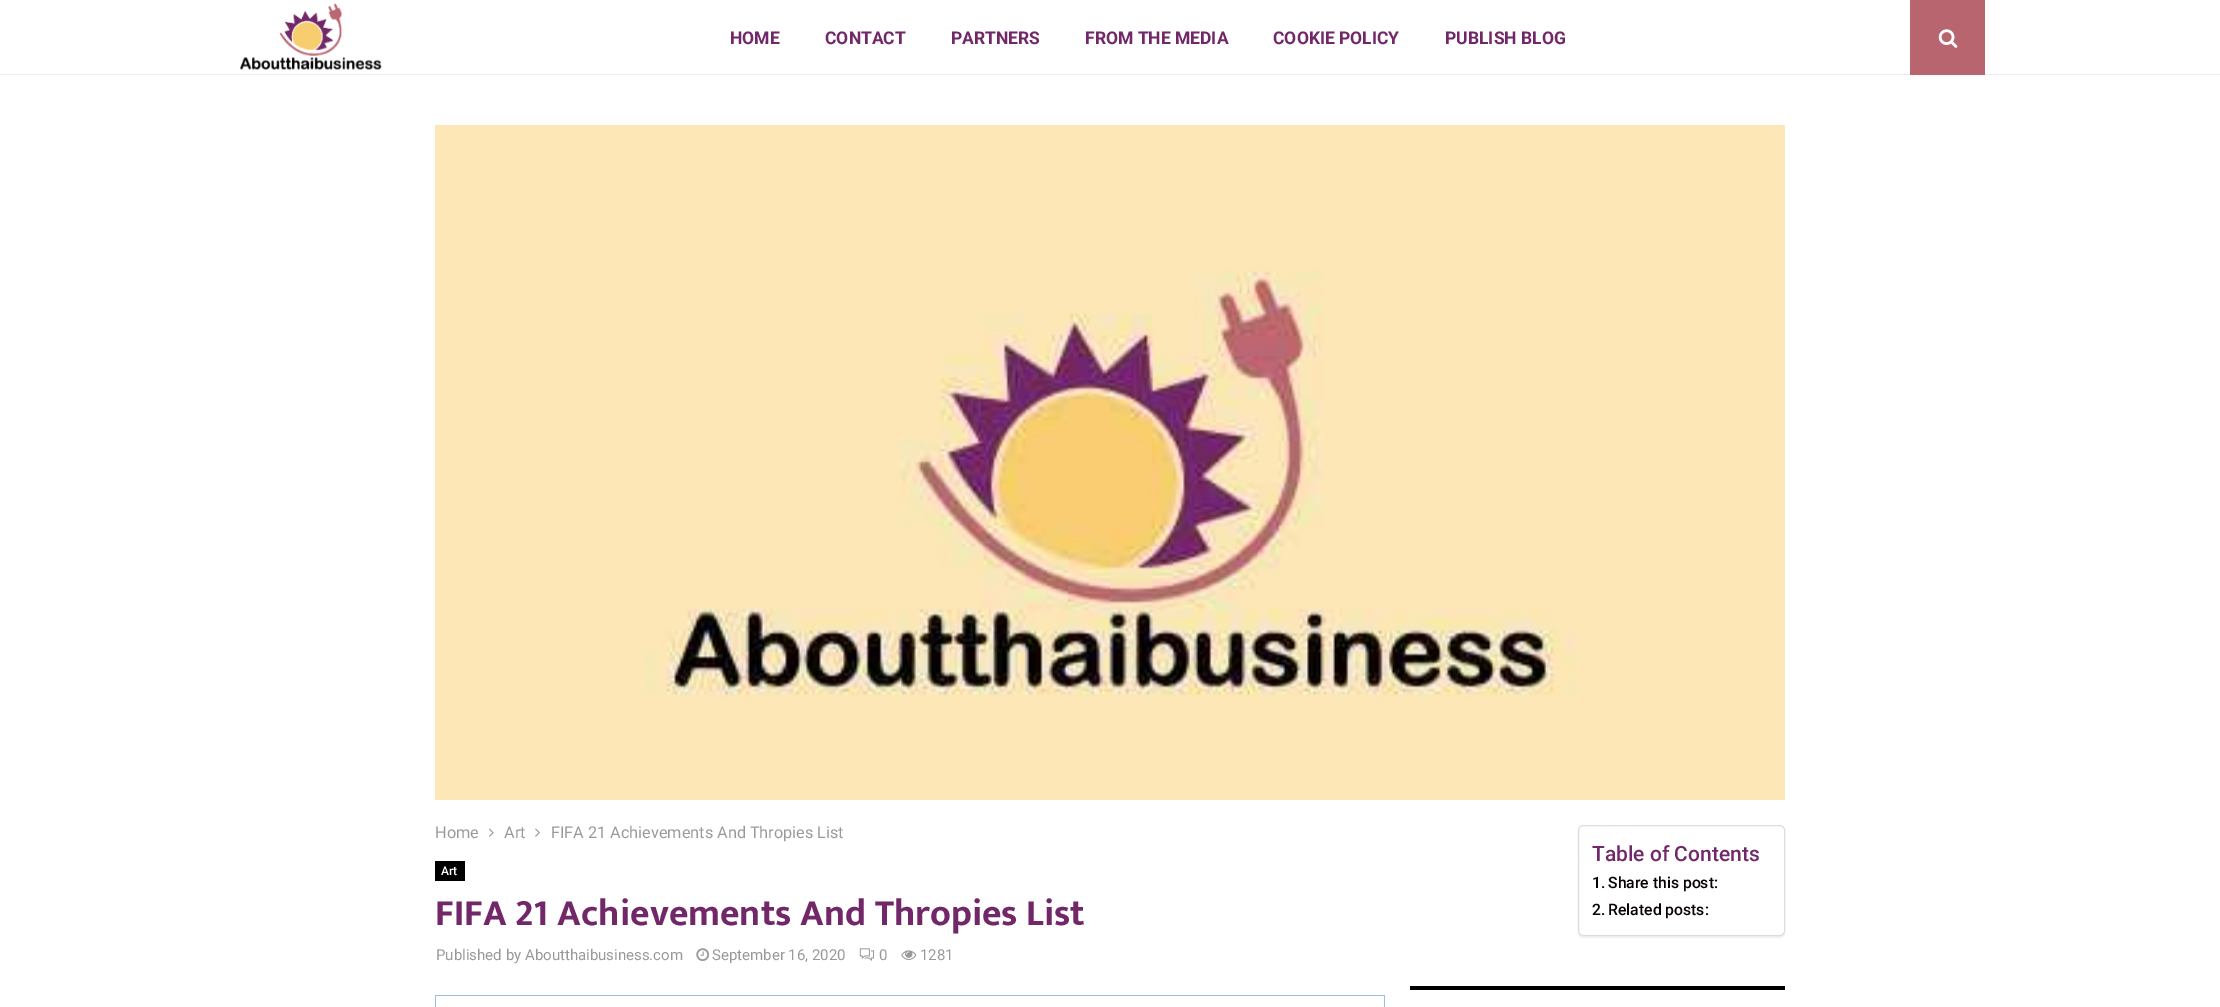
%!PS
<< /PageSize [2220 1007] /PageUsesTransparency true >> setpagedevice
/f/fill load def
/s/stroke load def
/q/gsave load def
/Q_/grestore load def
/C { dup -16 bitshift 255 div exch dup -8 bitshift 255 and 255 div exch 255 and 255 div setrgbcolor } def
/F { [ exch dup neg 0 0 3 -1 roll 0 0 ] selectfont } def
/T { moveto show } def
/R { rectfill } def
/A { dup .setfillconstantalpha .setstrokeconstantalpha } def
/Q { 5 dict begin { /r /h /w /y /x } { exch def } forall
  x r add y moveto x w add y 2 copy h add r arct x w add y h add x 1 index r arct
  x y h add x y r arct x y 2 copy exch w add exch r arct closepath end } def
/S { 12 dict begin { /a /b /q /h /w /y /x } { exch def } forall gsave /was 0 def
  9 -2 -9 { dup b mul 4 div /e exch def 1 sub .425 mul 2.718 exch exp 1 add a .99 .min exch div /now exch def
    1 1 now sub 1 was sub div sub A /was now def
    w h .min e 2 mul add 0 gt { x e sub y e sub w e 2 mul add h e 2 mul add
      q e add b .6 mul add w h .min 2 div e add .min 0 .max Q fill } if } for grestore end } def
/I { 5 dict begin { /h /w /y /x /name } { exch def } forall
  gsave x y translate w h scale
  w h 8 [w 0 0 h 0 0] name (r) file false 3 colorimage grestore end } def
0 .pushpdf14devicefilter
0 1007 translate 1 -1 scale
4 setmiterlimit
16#FFFFFF C
0 0 2220 1007 R
16#ECECEC C
0 74 2220 1 R
(1.rgb) 240 3 142 67 I
/Roboto-Bold 17.5 F
16#722769 C
(HOME) 730 44 T
(CONTACT) 825 44 T
(PARTNERS) 951 44 T
(FROM THE MEDIA) 1085 44 T
(COOKIE POLICY) 1273 44 T
(PUBLISH BLOG) 1445 44 T
16#B9656F C
1910 0 75 75 R
(2.rgb) 1938 29 20 19 I
(3.rgb) 435 125 1350 675 I
/Roboto-Regular 16.25 F
16#999999 C
(Home) 435 838 T
(4.rgb) 489 828 5 9 I
(Art) 504 838 T
(5.rgb) 535 828 5 9 I
(FIFA 21 Achievements And Thropies List) 551 838 T
16#000000 C
435 861 30 20 R
/Roboto-Medium 12 F
16#FFFFFF C
(Art) 441 875 T
/MuktaVaani-Bold 37.5 F
16#722769 C
(FIFA 21 Achievements And Thropies List) 435 925 T
/Roboto-Regular 15 F
16#999999 C
(Published by Aboutthaibusiness.com) 436 960 T
(6.rgb) 696 948 14 13 I
(September 16, 2020) 712 960 T
(7.rgb) 859 948 15 13 I
(0) 879 960 T
(8.rgb) 901 950 16 10 I
(1281) 920 960 T
16#99C0E1 C
435 995 950 1 R
1384 995 1 12 R
435 995 1 12 R
16#000000 C
1578 826 207 112 5 .5 .05 S
16#FFFFFF C
1578.5 825.5 206 110 4.5 Q q f Q_
16#DDDDDD C
s
/Roboto-Medium 21 F
16#722769 C
(Table of Contents) 1592 861 T
/Roboto-Medium 15.75 F
16#0A0202 C
(1.) 1592 888 T
(Share this post:) 1608 888 T
(2.) 1592 915 T
(Related posts:) 1608 915 T
16#000000 C
1410 986 375 4 R
.poppdf14devicefilter showpage
